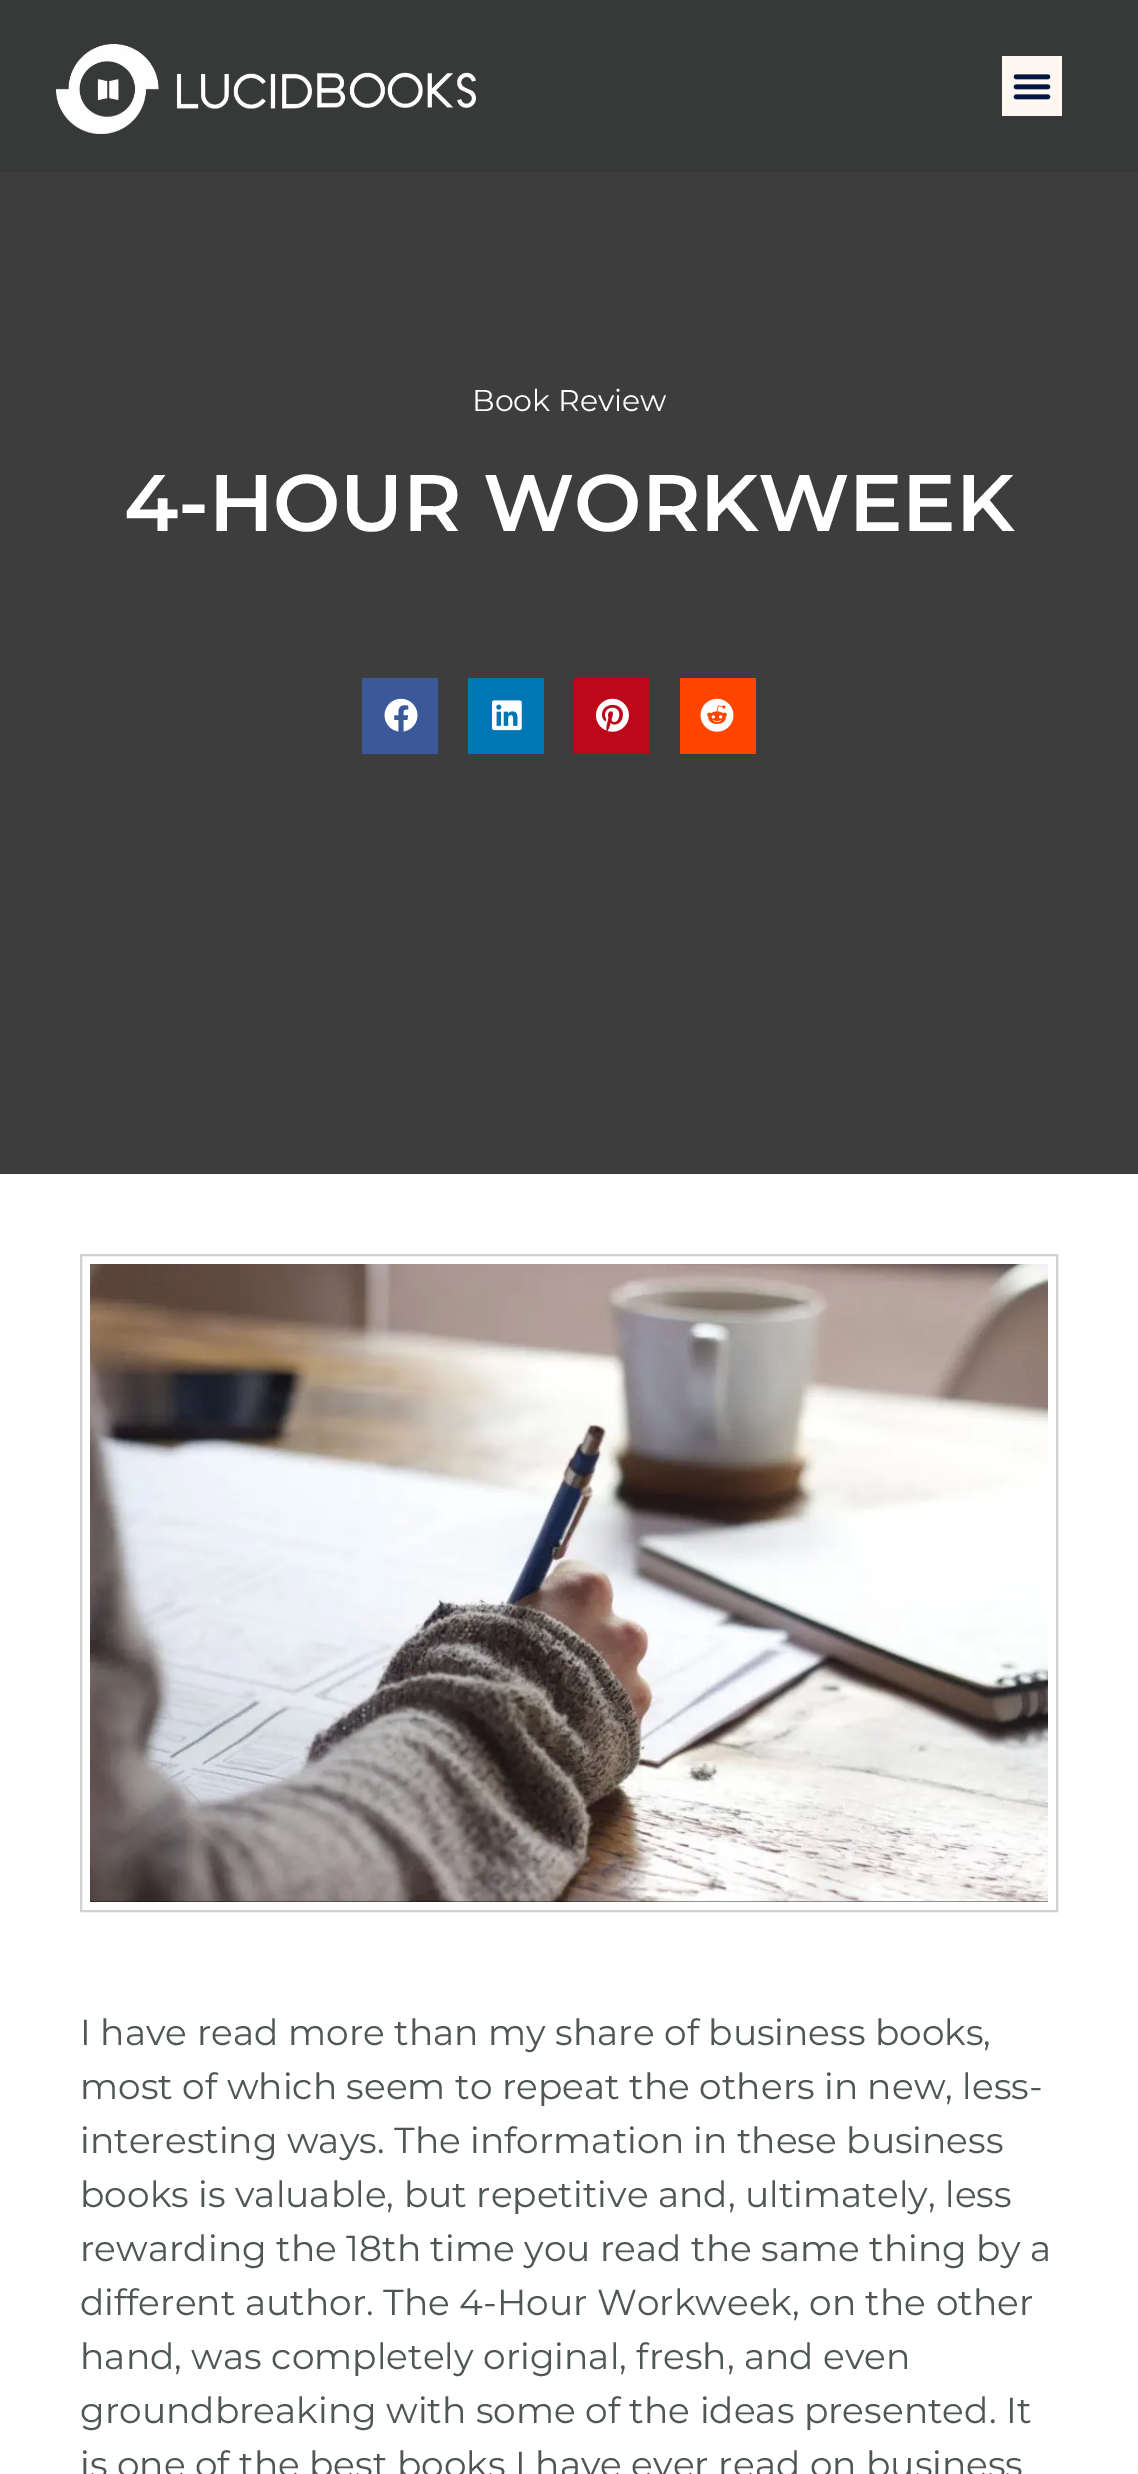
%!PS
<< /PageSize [1138 2474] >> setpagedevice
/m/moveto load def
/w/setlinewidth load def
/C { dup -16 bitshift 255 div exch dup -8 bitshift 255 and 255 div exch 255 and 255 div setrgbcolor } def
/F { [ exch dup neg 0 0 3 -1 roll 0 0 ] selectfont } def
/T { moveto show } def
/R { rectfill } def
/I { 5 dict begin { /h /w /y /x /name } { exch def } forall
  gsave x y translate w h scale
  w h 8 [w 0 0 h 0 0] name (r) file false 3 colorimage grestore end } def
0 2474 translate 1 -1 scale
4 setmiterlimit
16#3D3D3D C
0 0 1138 2474 R
16#373838 C
0 0 1138 172 R
(1.rgb) 56 44 420 90 I
16#FFF7F1 C
1002 56 60 60 R
(2.rgb) 1013 74 38 26 I
/Montserrat-Regular 30 F
16#FFFFFF C
(Book Review) 472 411 T
/Montserrat-SemiBold 80 F
124 531 m -.25 0 (4-HOUR WORKWEEK) ashow
16#3B5998 C
362 678 76 76 R
(3.rgb) 384 698 34 34 I
16#0077B5 C
468 678 76 76 R
(4.rgb) 492 700 30 31 I
16#BD081C C
574 678 76 76 R
(5.rgb) 596 698 33 34 I
16#FF4500 C
680 678 76 76 R
(6.rgb) 700 698 34 34 I
16#FFFFFF C
0 1174 1138 1300 R
16#D1D1D1 C
2 w
81 1255 976 656 rectstroke
(7.rgb) 90 1264 958 638 I
/Montserrat-Regular 36 F
16#4F5655 C
(I have read more than my share of business books,) 80 2045 T
(most of which seem to repeat the others in new, less-) 80 2099 T
(interesting ways. The information in these business) 80 2153 T
(books is valuable, but repetitive and, ultimately, less) 80 2207 T
(rewarding the 18th time you read the same thing by a) 80 2261 T
(different author. The 4-Hour Workweek, on the other) 80 2315 T
(hand, was completely original, fresh, and even) 80 2369 T
(groundbreaking with some of the ideas presented. It) 80 2423 T
(is one of the best books I have ever read on business) 80 2477 T
showpage
